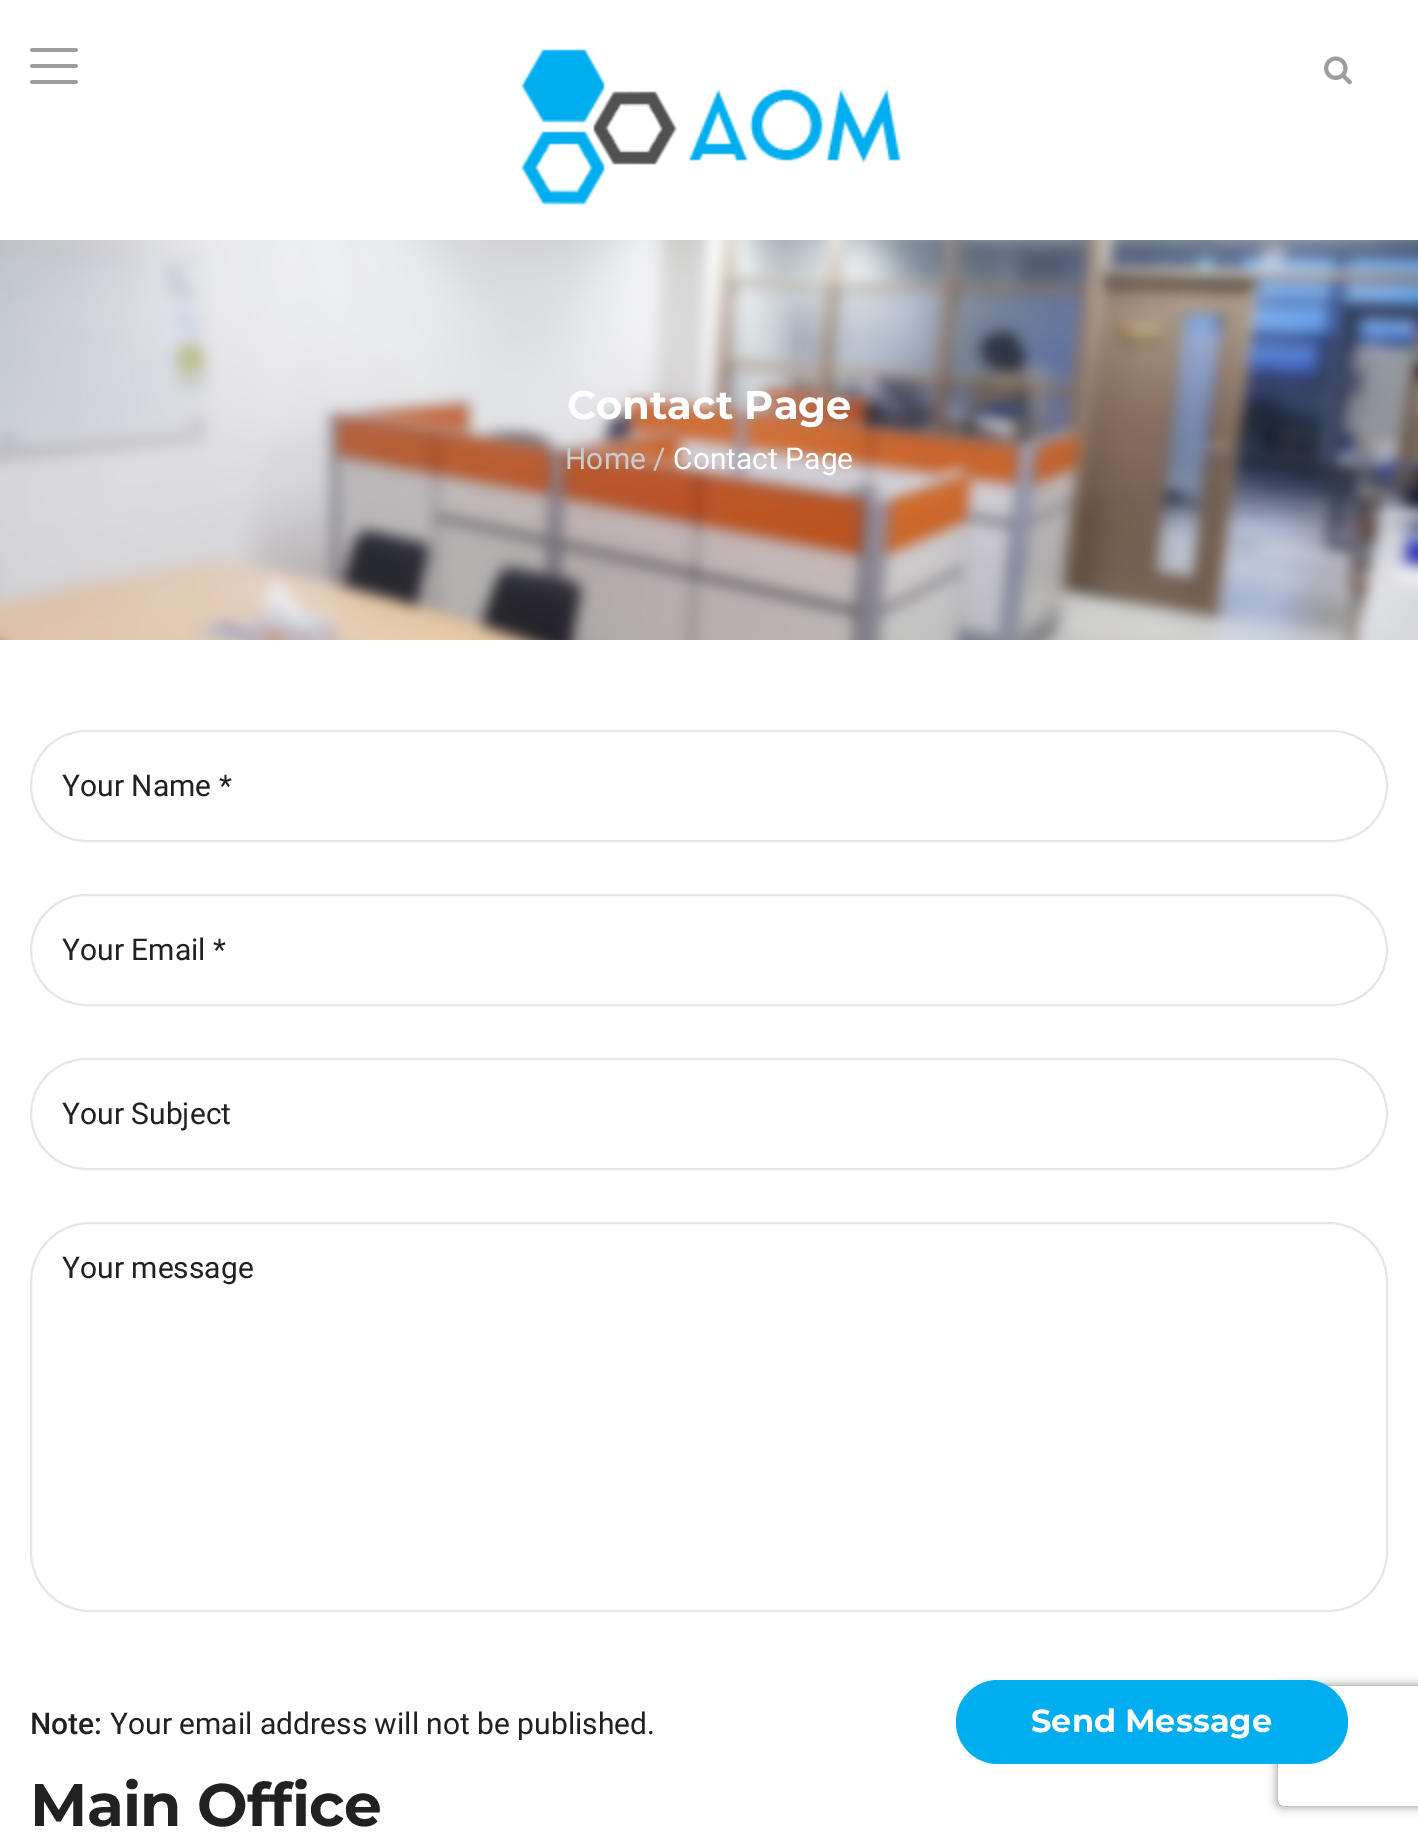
%!PS
<< /PageSize [1418 1833] /PageUsesTransparency true >> setpagedevice
/m/moveto load def
/l/rlineto load def
/c/rcurveto load def
/z/closepath load def
/f/fill load def
/s/stroke load def
/q/gsave load def
/Q_/grestore load def
/w/setlinewidth load def
/C { dup -16 bitshift 255 div exch dup -8 bitshift 255 and 255 div exch 255 and 255 div setrgbcolor } def
/F { [ exch dup neg 0 0 3 -1 roll 0 0 ] selectfont } def
/T { moveto show } def
/R { rectfill } def
/A { dup .setfillconstantalpha .setstrokeconstantalpha } def
/Q { 5 dict begin { /r /h /w /y /x } { exch def } forall
  x r add y moveto x w add y 2 copy h add r arct x w add y h add x 1 index r arct
  x y h add x y r arct x y 2 copy exch w add exch r arct closepath end } def
/S { 12 dict begin { /a /b /q /h /w /y /x } { exch def } forall gsave /was 0 def
  9 -2 -9 { dup b mul 4 div /e exch def 1 sub .425 mul 2.718 exch exp 1 add a .99 .min exch div /now exch def
    1 1 now sub 1 was sub div sub A /was now def
    w h .min e 2 mul add 0 gt { x e sub y e sub w e 2 mul add h e 2 mul add
      q e add b .6 mul add w h .min 2 div e add .min 0 .max Q fill } if } for grestore end } def
/I { 5 dict begin { /h /w /y /x /name } { exch def } forall
  gsave x y translate w h scale
  w h 8 [w 0 0 h 0 0] name (r) file false 3 colorimage grestore end } def
0 .pushpdf14devicefilter
0 1833 translate 1 -1 scale
4 setmiterlimit
16#FFFFFF C
0 0 1418 1833 R
(1.rgb) 30 48 48 36 I
(2.rgb) 521 49 380 156 I
(3.rgb) 1324 56 28 29 I
(4.rgb) 0 240 1418 400 I
/Montserrat-Bold 40 F
(Contact Page) 567 419 T
/Roboto-Regular 30 F
16#CCCCCC C
(Home /) 565 469 T
16#FFFFFF C
(Contact Page) 673 469 T
16#E6E6E6 C
2 w
31 731 1356 110 55 Q s
16#212121 C
(Your Name *) 62 796 T
16#E6E6E6 C
31 895 1356 110 55 Q s
16#212121 C
(Your Email *) 62 960 T
16#E6E6E6 C
31 1059 1356 110 55 Q s
16#212121 C
(Your Subject) 62 1124 T
16#E6E6E6 C
31 1223 1356 388 59 Q s
16#212121 C
(Your message) 62 1278 T
/Roboto-Medium 30 F
(Note:) 30 1734 T
/Roboto-Regular 30 F
(Your email address will not be published.) 110 1734 T
q
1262 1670 m 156 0 l 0 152 l -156 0 l z 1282 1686 m 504 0 l 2 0 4 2 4 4 c 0 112 l 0 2 -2 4 -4 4 c -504 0 l -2 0 -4 -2 -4 -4 c 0 -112 l 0 -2 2 -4 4 -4 c z eoclip newpath
16#808080 C
1278 1686 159 120 4 5 1 S
Q_
16#00ADEE C
956 1680 392 84 42 Q f
/Montserrat-Bold 32 F
16#FFFFFF C
(Send Message) 1031 1732 T
/Montserrat-Bold 60 F
16#212121 C
30 1826 m -.75 0 (Main Office) ashow
.poppdf14devicefilter showpage
